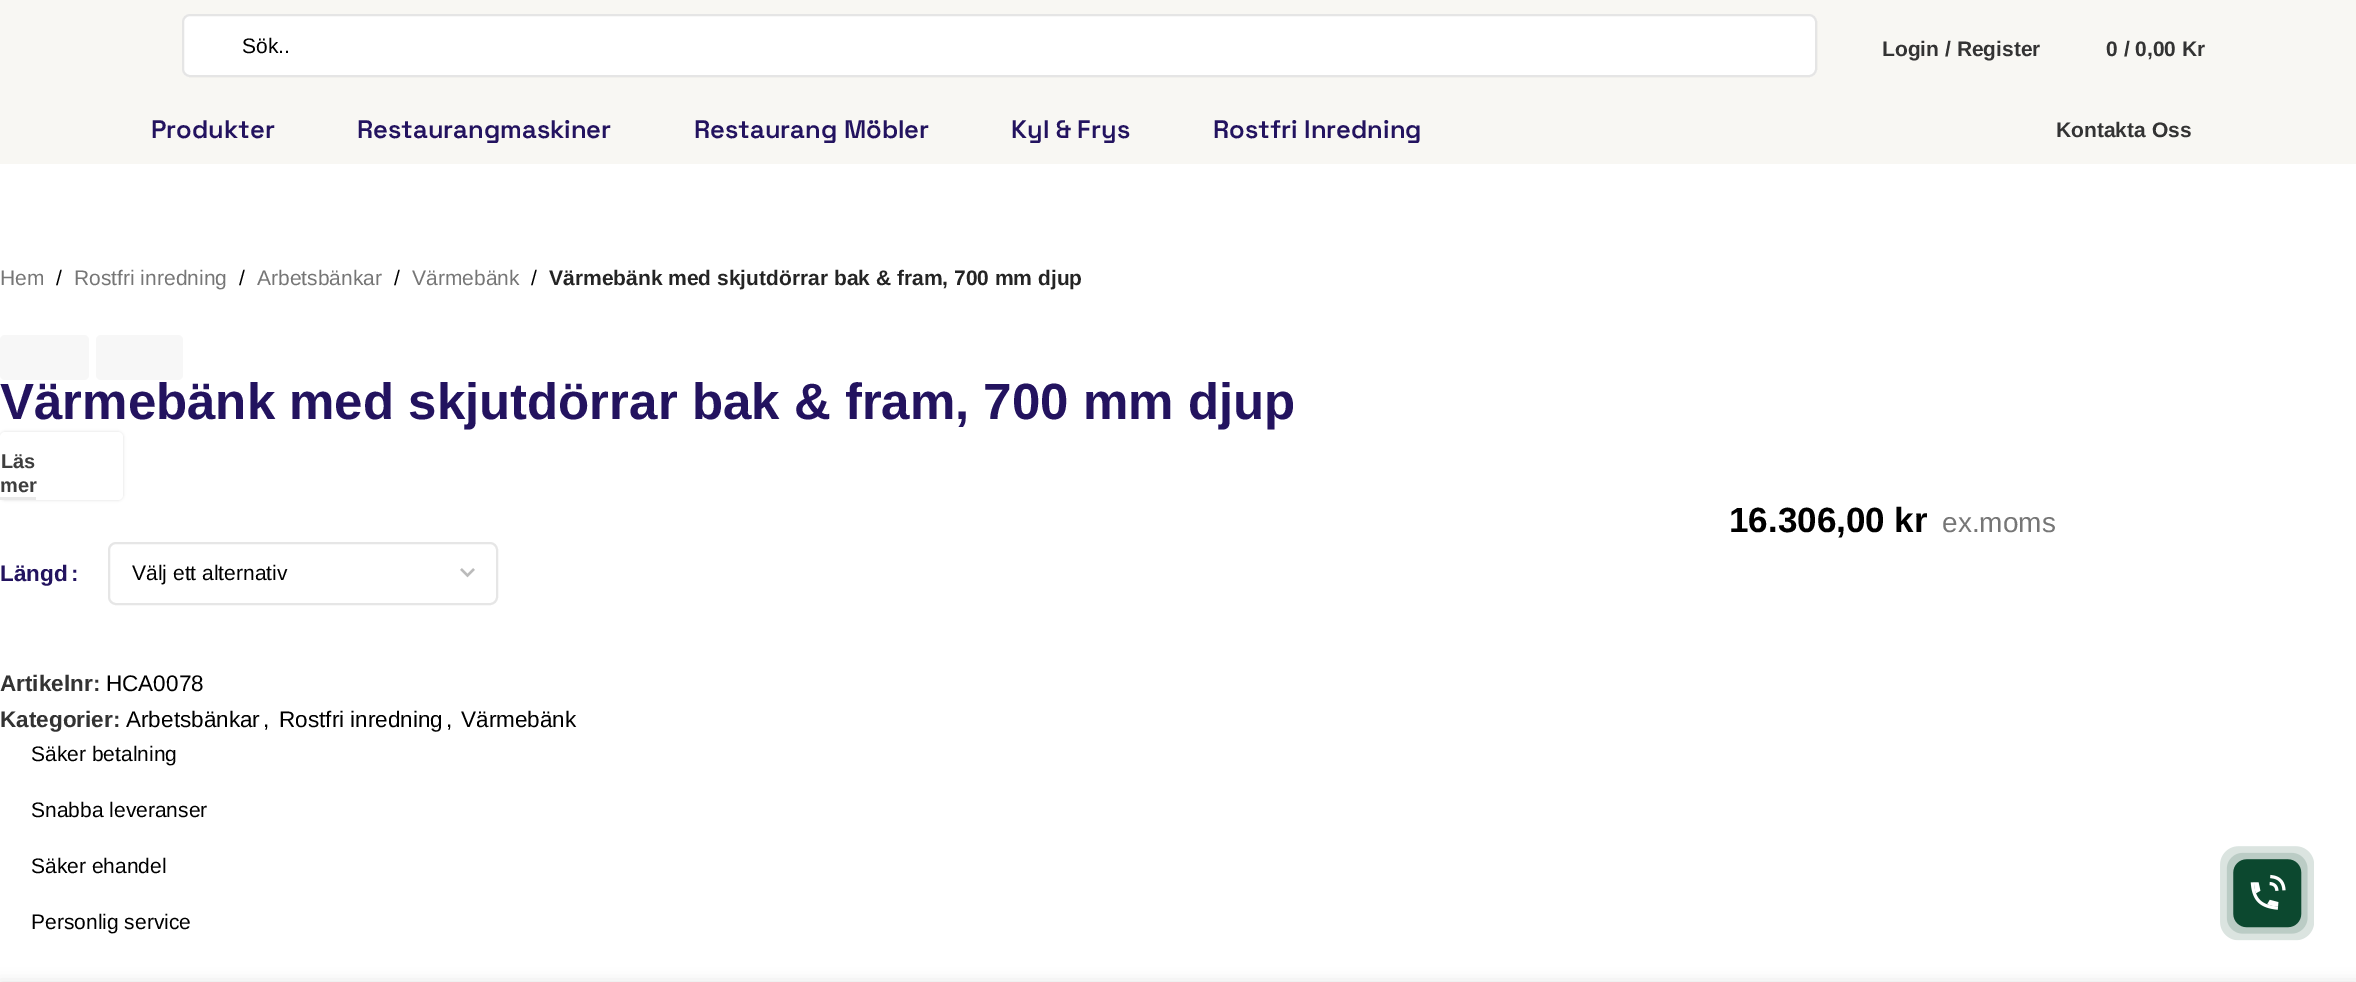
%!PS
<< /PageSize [2356 982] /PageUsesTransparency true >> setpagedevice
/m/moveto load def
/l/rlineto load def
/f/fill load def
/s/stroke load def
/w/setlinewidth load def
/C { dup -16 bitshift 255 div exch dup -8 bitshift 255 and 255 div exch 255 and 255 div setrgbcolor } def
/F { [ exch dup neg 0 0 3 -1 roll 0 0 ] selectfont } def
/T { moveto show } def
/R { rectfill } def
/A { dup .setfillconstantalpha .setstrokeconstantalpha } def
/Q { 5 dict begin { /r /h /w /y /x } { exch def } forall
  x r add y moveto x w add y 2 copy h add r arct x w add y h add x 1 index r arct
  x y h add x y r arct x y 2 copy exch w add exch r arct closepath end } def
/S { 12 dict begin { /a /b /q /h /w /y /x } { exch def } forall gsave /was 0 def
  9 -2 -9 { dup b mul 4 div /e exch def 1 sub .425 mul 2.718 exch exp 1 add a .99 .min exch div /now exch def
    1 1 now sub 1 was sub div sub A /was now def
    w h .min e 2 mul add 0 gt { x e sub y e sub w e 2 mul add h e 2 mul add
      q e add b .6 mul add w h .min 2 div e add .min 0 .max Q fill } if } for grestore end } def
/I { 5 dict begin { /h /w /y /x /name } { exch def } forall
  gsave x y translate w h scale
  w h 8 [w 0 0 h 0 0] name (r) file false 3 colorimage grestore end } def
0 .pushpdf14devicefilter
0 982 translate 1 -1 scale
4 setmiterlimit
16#FFFFFF C
0 0 2356 982 R
16#F8F7F3 C
0 0 2356 164 R
16#FFFFFF C
182 14 1635 63 8 Q f
0.1 A
16#000000 C
2 w
183 15 1633 61 7 Q s
/LiberationSans-Regular 21 F
1 A
(Sök..) 242 53 T
/LiberationSans-Bold 21 F
16#333333 C
(Login / Register) 1882 56 T
(0 / 0,00 Kr) 2106 56 T
/SpaceGrotesk-SemiBold 25.5 F
16#23135F C
(Produkter) 151 138 T
(Restaurangmaskiner) 357 138 T
(Restaurang Möbler) 694 138 T
(Kyl & Frys) 1011 138 T
(Rostfri Inredning) 1213 138 T
/LiberationSans-Bold 21 F
16#333333 C
(Kontakta Oss) 2056 137 T
/LiberationSans-Regular 21 F
16#767676 C
(Hem) 0 285 T
16#000000 C
(/) 56 285 T
16#767676 C
(Rostfri inredning) 74 285 T
16#000000 C
(/) 239 285 T
16#767676 C
(Arbetsbänkar) 257 285 T
16#000000 C
(/) 394 285 T
16#767676 C
(Värmebänk) 412 285 T
16#000000 C
(/) 531 285 T
/LiberationSans-Bold 21 F
16#242424 C
(Värmebänk med skjutdörrar bak & fram, 700 mm djup) 549 285 T
16#F7F7F7 C
0 335 89 45 5 Q f
96 335 87 45 5 Q f
/LiberationSans-Bold 51 F
16#23135F C
(Värmebänk med skjutdörrar bak & fram, 700 mm djup) 0 419 T
16#000000 C
0 432 123 68 5 1.5 .12 S
16#FFFFFF C
0 432 123 68 5 Q f
16#E9E9E9 C
0 497 36 3 R
/LiberationSans-Bold 20 F
16#3E3E3E C
(Läs) 1 468 T
(mer) 0 492 T
/LiberationSans-Bold 35 F
16#000000 C
(16.306,00 kr) 1729 532 T
/LiberationSans-Regular 28 F
16#767676 C
(ex.moms) 1942 532 T
/LiberationSans-Bold 22.5 F
16#23135F C
(Längd) 0 581 T
(:) 71 581 T
16#BBBBBB C
2.2 w
461 569 m 6.5 6.5 l 6.5 -6.5 l s
16#E6E6E6 C
2 w
109 543 388 61 7 Q s
/LiberationSans-Regular 21 F
16#000000 C
(Välj ett alternativ) 132 580 T
/LiberationSans-Bold 22.5 F
16#333333 C
(Artikelnr:) 0 691 T
/LiberationSans-Regular 22.5 F
16#000000 C
(HCA0078) 106 691 T
/LiberationSans-Bold 22.5 F
16#333333 C
(Kategorier:) 0 727 T
/LiberationSans-Regular 22.5 F
16#000000 C
(Arbetsbänkar) 126 727 T
(,) 263 727 T
(Rostfri inredning) 279 727 T
(,) 446 727 T
(Värmebänk) 461 727 T
/LiberationSans-Regular 21 F
(Säker betalning) 31 761 T
(Snabba leveranser) 31 817 T
(Säker ehandel) 31 873 T
(Personlig service) 31 929 T
(1.rgb) 2220 846 94 95 I
0 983 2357 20 0 7 .14 S
.poppdf14devicefilter showpage
